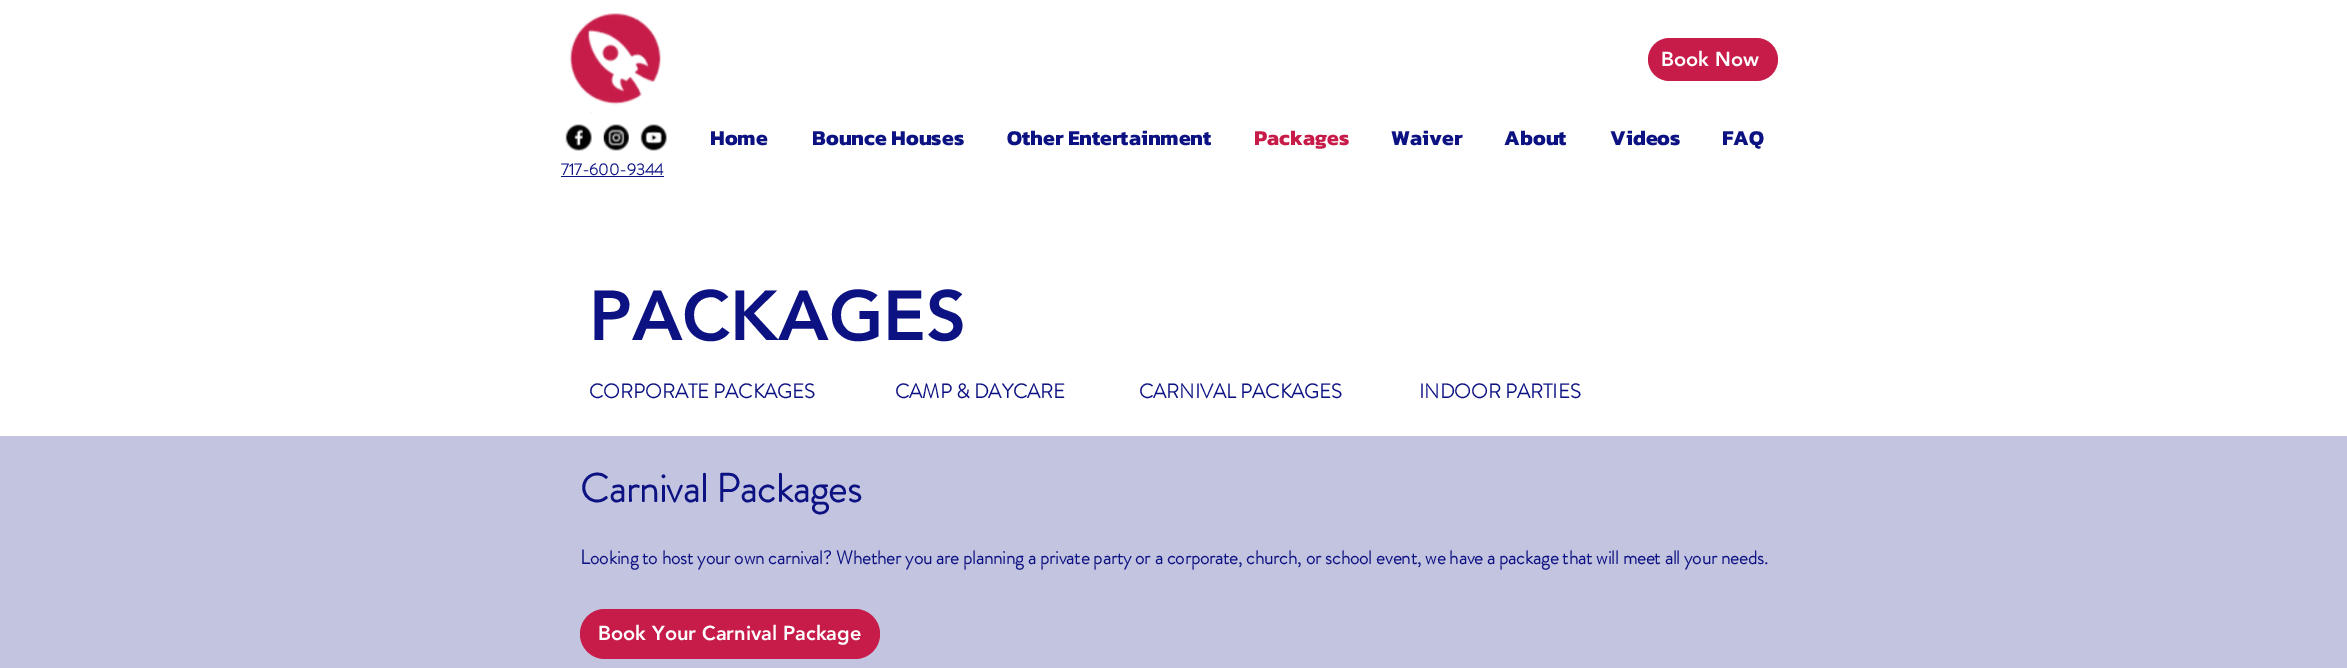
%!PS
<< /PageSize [2347 668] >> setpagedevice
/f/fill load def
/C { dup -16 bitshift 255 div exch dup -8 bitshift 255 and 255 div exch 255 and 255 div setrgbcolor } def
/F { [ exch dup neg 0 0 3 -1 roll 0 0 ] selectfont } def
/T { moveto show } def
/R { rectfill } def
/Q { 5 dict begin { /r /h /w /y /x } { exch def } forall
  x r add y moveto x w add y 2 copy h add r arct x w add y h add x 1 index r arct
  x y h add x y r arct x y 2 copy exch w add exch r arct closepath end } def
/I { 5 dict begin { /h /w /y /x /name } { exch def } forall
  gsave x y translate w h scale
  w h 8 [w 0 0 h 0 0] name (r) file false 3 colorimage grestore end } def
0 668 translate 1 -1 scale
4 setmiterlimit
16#FFFFFF C
0 0 2347 668 R
(1.rgb) 569 13 92 101 I
16#C71C49 C
1648 38 130 43 21.5 Q f
/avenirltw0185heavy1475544-Black 20 F
16#FFFFFF C
(Book Now) 1661 66 T
(2.rgb) 565 124 27 27 I
(3.rgb) 603 124 26 27 I
(4.rgb) 640 124 27 27 I
/Kanit-Bold 21.25 F
16#0D1282 C
(Home) 710 145 T
(Bounce Houses) 812 145 T
(Other Entertainment) 1007 145 T
16#C71C49 C
(Packages) 1254 145 T
16#0D1282 C
(Waiver) 1391 145 T
(About) 1504 145 T
(Videos) 1610 145 T
(FAQ) 1722 145 T
/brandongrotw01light-Bold 16.25 F
(717-600-9344) 561 175 T
561 176 103 1 R
/avenirltw0185heavy1475544-Black 70 F
(PACKAGES) 589 340 T
/brandongrotw01light-Bold 20 F
(CORPORATE PACKAGES) 589 398 T
(CAMP & DAYCARE) 895 398 T
(CARNIVAL PACKAGES) 1139 398 T
(INDOOR PARTIES) 1419 398 T
16#C3C4E0 C
0 436 2347 232 R
/brandongrotw01light-Bold 40 F
16#0D1282 C
(Carnival Packages) 580 502 T
/brandongrotw01light-Bold 20 F
(L) 580 564 T
/brandongrotw01light-Bold 18.75 F
(ooking to host your own carnival? Whether you are planning a private party or a corporate, church, or school event, we have a package that will meet all your needs.) 590 564 T
16#C71C49 C
580 609 300 50 25 Q f
/avenirltw0185heavy1475544-Black 20 F
16#FFFFFF C
(Book Your Carnival Package) 598 640 T
showpage
